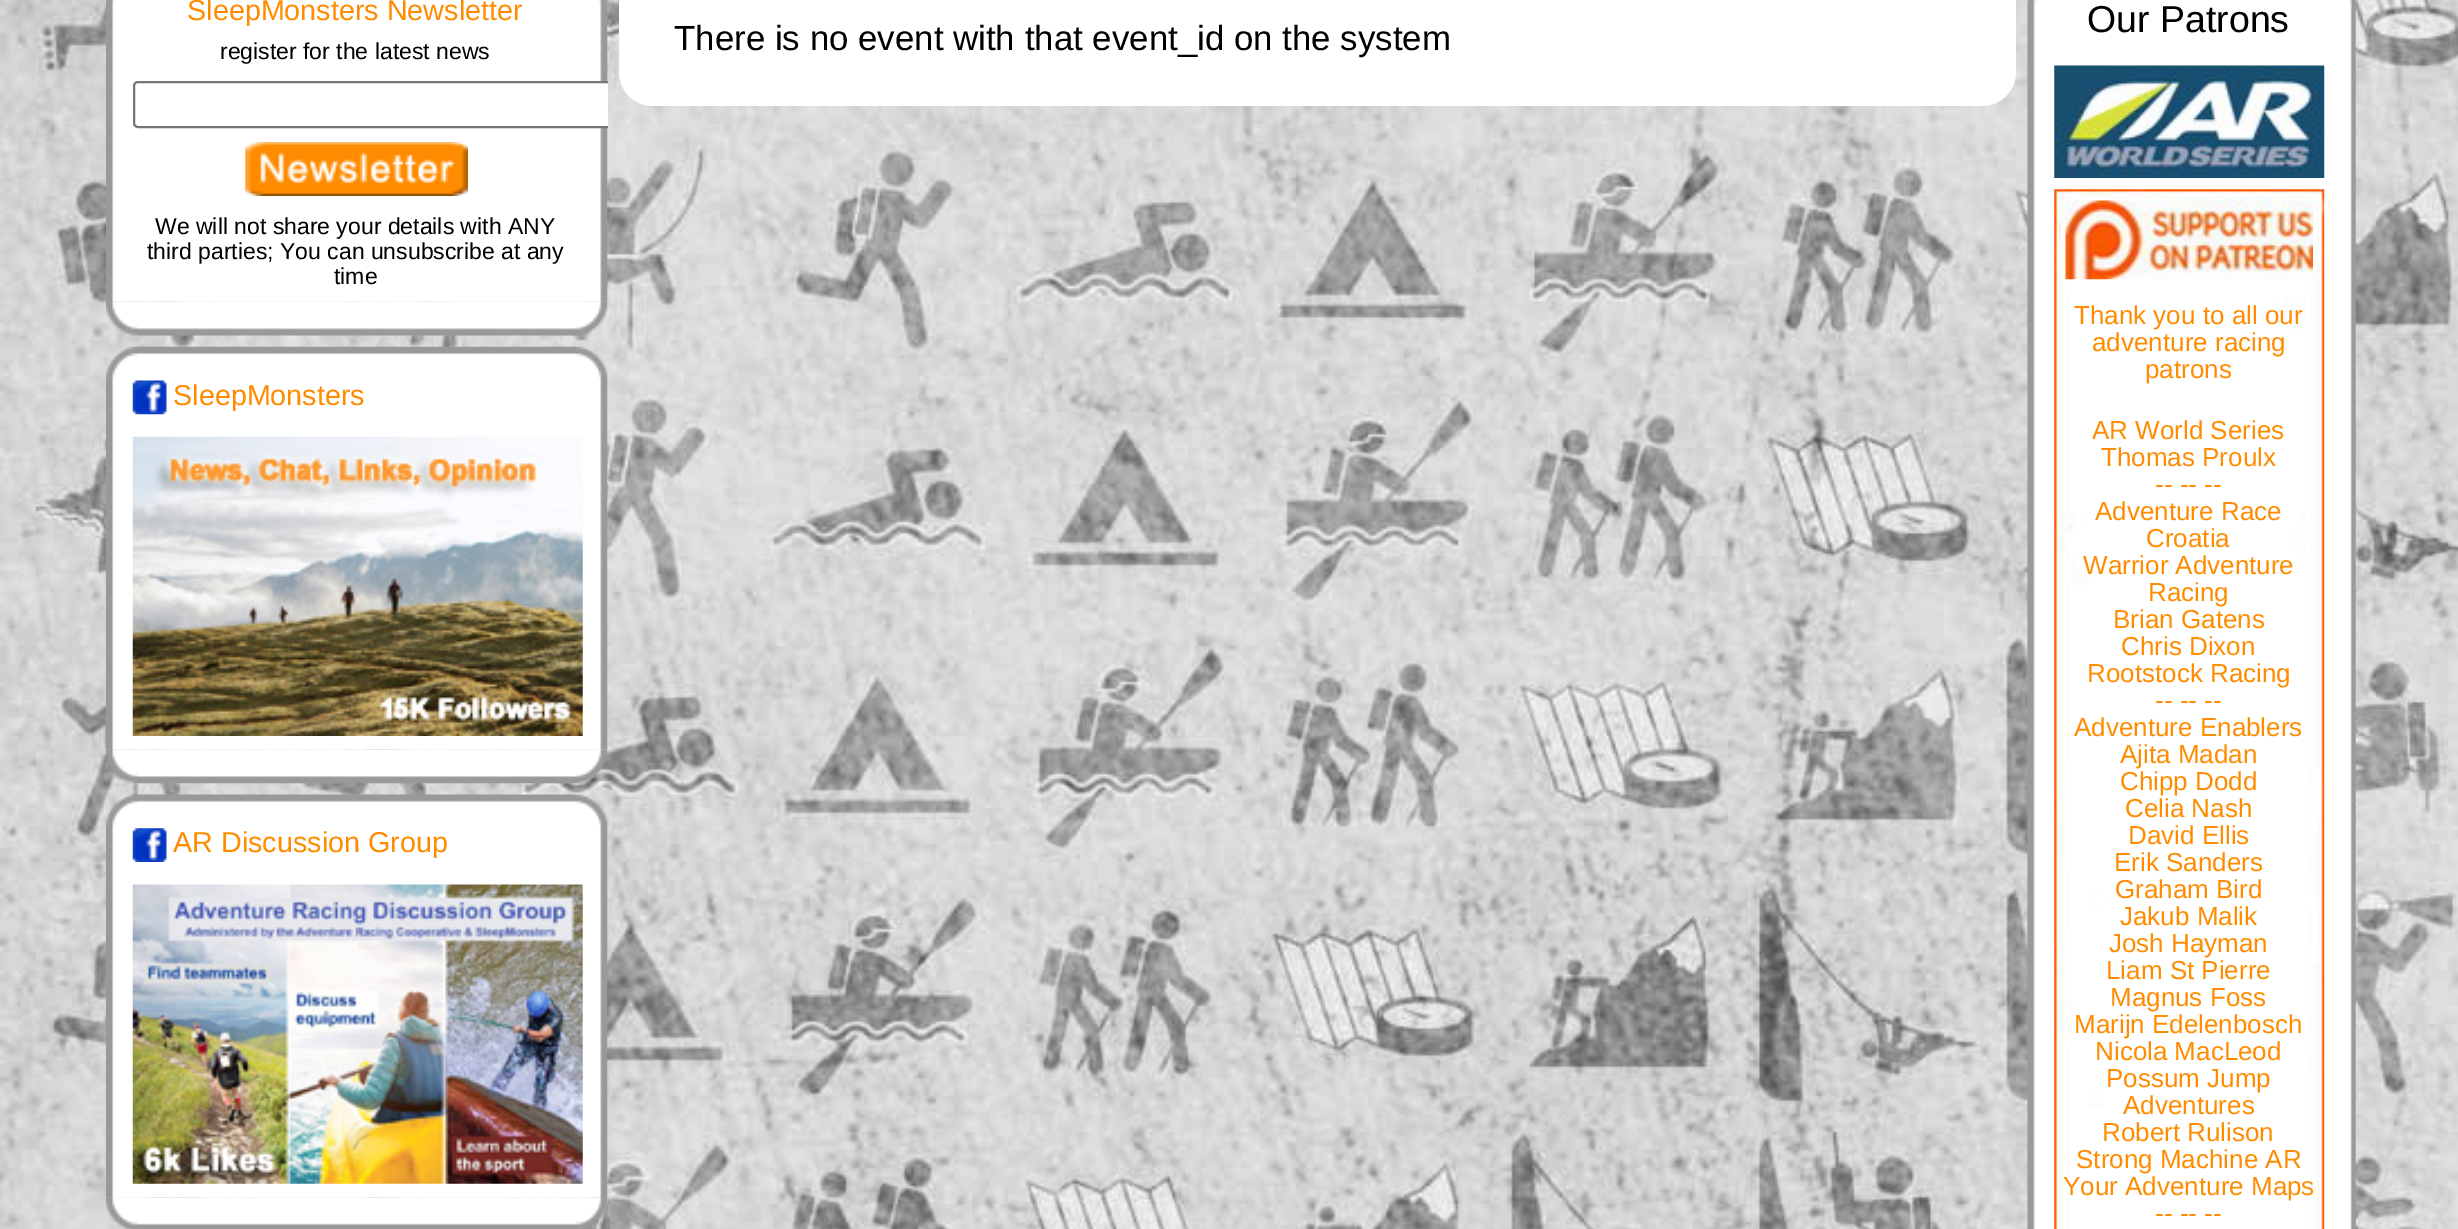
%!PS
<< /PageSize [2458 1229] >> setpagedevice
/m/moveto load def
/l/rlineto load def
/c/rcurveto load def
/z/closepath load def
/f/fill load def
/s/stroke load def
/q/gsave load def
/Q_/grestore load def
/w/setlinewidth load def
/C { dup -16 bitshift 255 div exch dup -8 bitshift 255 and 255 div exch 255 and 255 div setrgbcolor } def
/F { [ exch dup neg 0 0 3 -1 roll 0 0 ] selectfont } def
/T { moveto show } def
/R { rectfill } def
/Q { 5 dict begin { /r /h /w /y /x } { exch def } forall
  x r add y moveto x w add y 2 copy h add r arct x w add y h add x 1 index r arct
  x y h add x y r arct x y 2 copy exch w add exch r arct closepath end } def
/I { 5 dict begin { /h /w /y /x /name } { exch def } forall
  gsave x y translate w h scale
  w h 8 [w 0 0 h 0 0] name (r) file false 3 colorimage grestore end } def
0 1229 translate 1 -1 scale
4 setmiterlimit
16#FFFFFF C
0 0 2458 1229 R
(1.rgb) 0 0 2458 1229 I
(2.rgb) 106 0 502 302 I
/LiberationSans-Regular 28.75 F
16#FF8C00 C
(SleepMonsters Newsletter) 187 20 T
/LiberationSans-Regular 23 F
16#000000 C
(register for the latest news) 220 59 T
16#FFFFFF C
138 81 m 470 0 l 0 47 l -470 0 l -3 0 -5 -2 -5 -5 c 0 -37 l 0 -3 2 -5 5 -5 c z f
619 -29 1397 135 34 Q f
q
106 0 502 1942 rectclip
16#767676 C
2 w
134 82 504 45 4 Q s
Q_
(3.rgb) 245 142 223 54 I
16#000000 C
(We will not share your details with ANY) 155 234 T
(third parties; You can unsubscribe at any) 147 259 T
(time) 334 284 T
(4.rgb) 105 301 503 35 I
(5.rgb) 105 346 503 404 I
(6.rgb) 132 380 35 35 I
/LiberationSans-Regular 28.75 F
16#FF8C00 C
(SleepMonsters) 173 405 T
(7.rgb) 132 436 451 300 I
(8.rgb) 105 749 503 35 I
(9.rgb) 105 794 503 404 I
(10.rgb) 132 828 35 34 I
(AR Discussion Group) 173 852 T
(11.rgb) 132 884 451 300 I
(12.rgb) 106 1197 502 32 I
/LiberationSans-Regular 34.85 F
16#000000 C
(There is no event with that event_id on the system) 674 50 T
(13.rgb) 2027 0 329 1229 I
/LiberationSans-Regular 37.5 F
(Our Patrons) 2087 32 T
(14.rgb) 2054 65 271 113 I
(15.rgb) 2054 189 271 1040 I
(16.rgb) 2065 200 248 80 I
/LiberationSans-Regular 26 F
16#FF8C00 C
(Thank you to all our) 2074 324 T
(adventure racing) 2092 351 T
(patrons) 2145 378 T
(AR World Series) 2092 439 T
(Thomas Proulx) 2101 466 T
(-- -- --) 2155 493 T
(Adventure Race) 2095 520 T
(Croatia) 2146 547 T
(Warrior Adventure) 2083 574 T
(Racing) 2148 601 T
(Brian Gatens) 2113 628 T
(Chris Dixon) 2121 655 T
(Rootstock Racing) 2087 682 T
(-- -- --) 2155 709 T
(Adventure Enablers) 2074 736 T
(Ajita Madan) 2120 763 T
(Chipp Dodd) 2120 790 T
(Celia Nash) 2125 817 T
(David Ellis) 2128 844 T
(Erik Sanders) 2114 871 T
(Graham Bird) 2115 898 T
(Jakub Malik) 2120 925 T
(Josh Hayman) 2109 952 T
(Liam St Pierre) 2106 979 T
(Magnus Foss) 2110 1006 T
(Marijn Edelenbosch) 2074 1033 T
(Nicola MacLeod) 2095 1060 T
(Possum Jump) 2106 1087 T
(Adventures) 2123 1114 T
(Robert Rulison) 2102 1141 T
(Strong Machine AR) 2076 1168 T
(Your Adventure Maps) 2063 1195 T
(-- -- --) 2155 1222 T
showpage
